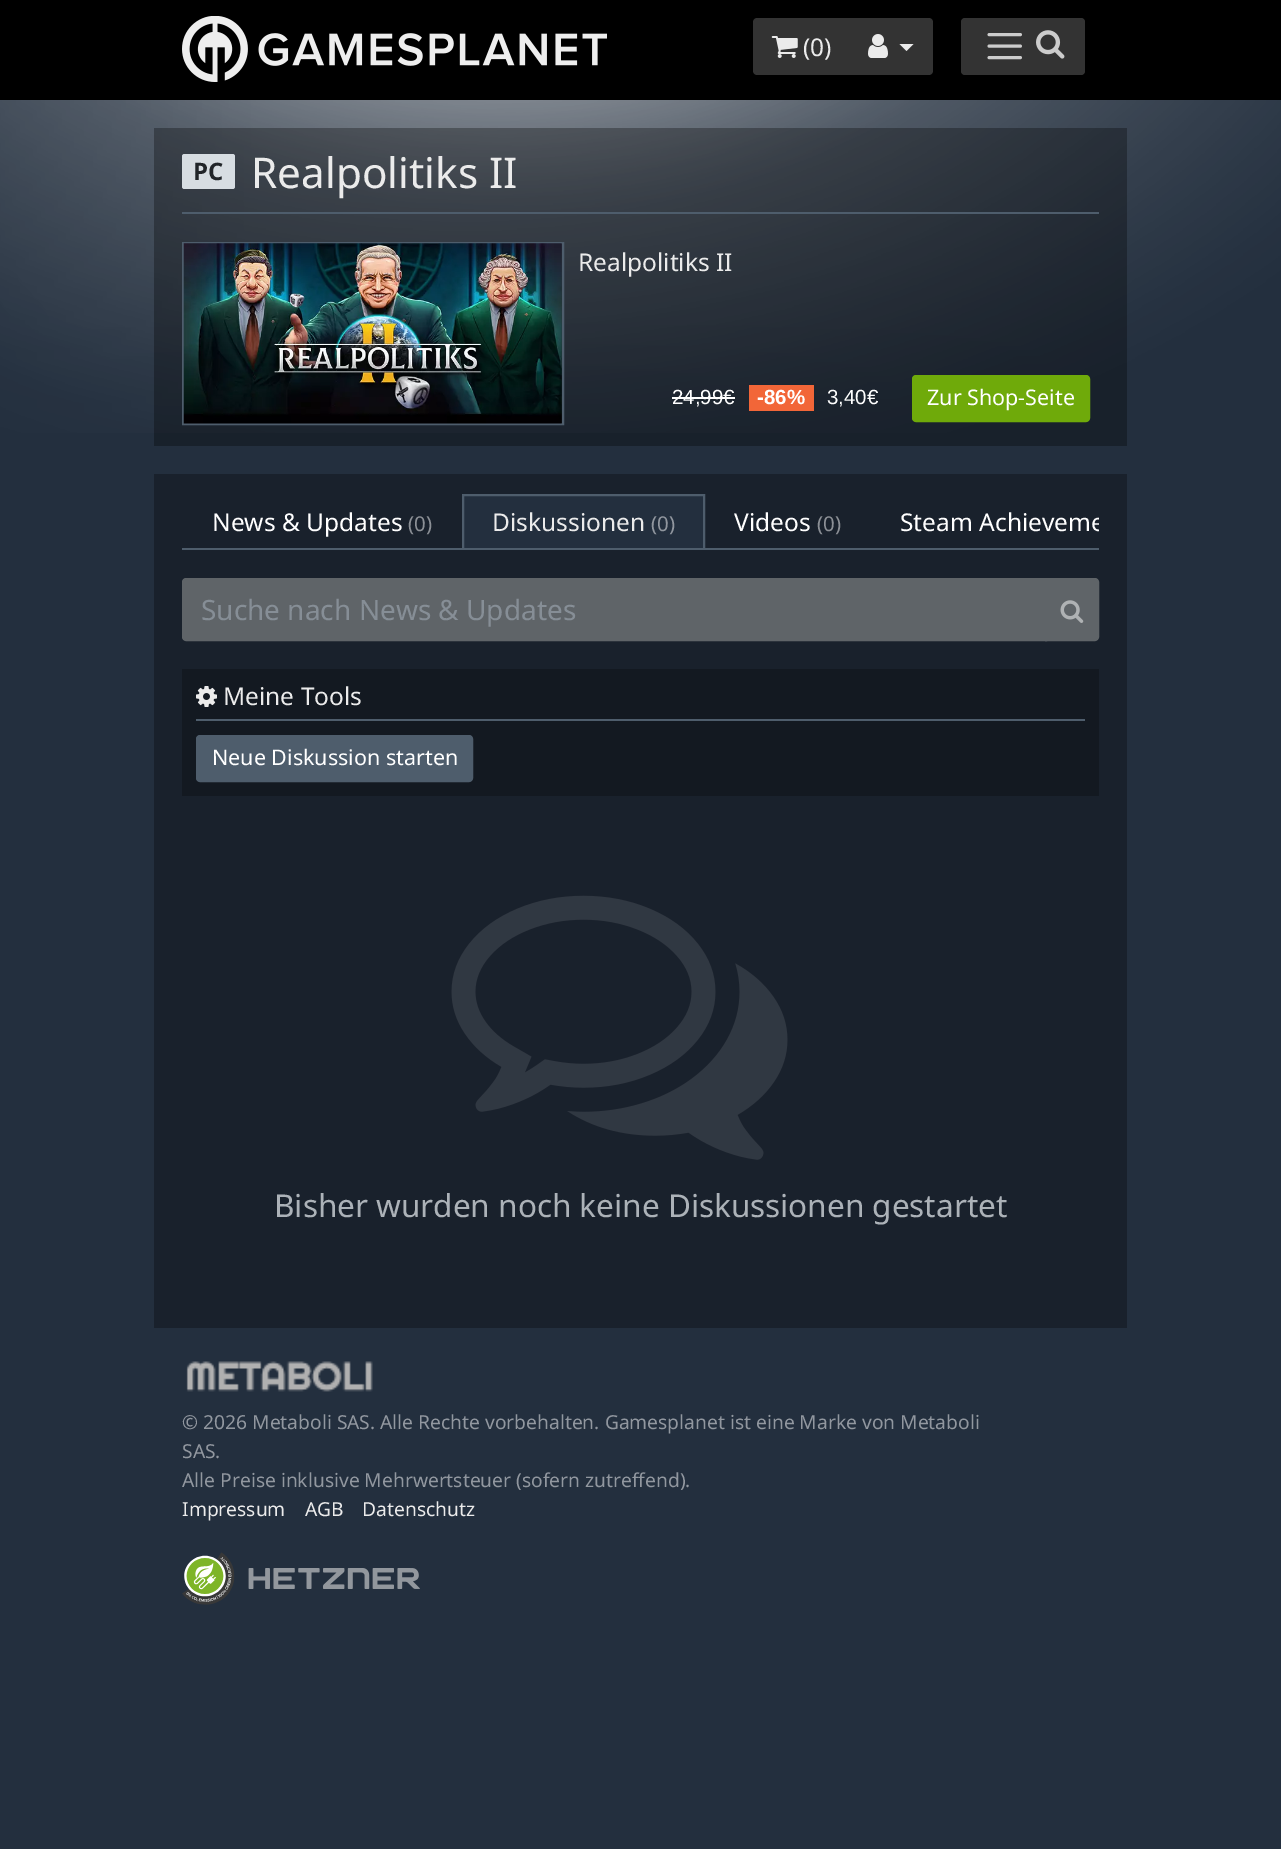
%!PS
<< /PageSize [1281 1849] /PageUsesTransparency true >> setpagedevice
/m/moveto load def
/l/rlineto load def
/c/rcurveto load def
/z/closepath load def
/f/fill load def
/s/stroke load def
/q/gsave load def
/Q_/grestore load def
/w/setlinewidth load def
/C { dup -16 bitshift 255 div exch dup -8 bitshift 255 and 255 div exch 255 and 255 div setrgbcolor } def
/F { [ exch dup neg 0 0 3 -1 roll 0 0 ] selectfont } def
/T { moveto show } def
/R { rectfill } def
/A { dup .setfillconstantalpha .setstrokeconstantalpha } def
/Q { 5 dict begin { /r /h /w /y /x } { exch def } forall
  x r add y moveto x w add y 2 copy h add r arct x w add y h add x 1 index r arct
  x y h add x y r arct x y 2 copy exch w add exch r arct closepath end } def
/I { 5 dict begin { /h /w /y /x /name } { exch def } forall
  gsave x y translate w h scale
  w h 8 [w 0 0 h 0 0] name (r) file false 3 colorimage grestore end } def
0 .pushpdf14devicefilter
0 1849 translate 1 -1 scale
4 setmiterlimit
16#232F3E C
0 0 1281 1849 R
(1.rgb) 0 100 1281 333 I
16#000000 C
0 0 1281 100 R
(2.rgb) 182 16 425 66 I
16#333333 C
757 18 m 94 0 l 0 57 l -94 0 l -2 0 -4 -2 -4 -4 c 0 -49 l 0 -2 2 -4 4 -4 c z f
(3.rgb) 771 36 27 22 I
/NotoSans-Regular 24.5 F
16#EBEBEB C
(\(0\)) 803 56 T
16#333333 C
849 18 m 80 0 l 2 0 4 2 4 4 c 0 49 l 0 2 -2 4 -4 4 c -80 0 l z f
(4.rgb) 868 34 20 24 I
16#EBEBEB C
899.5 44 m 14 0 l -7 7 l z f
16#333333 C
961 18 124 57 4 Q f
16#CCCCCC C
2.9 w
1 setlinecap
989 34.5 m 31.5 0 l 989 46 m 31.5 0 l 989 57.5 m 31.5 0 l s
(5.rgb) 1036 30 29 29 I
0.3 A
16#000000 C
154 128 973 318 R
1 A
16#D7DDE2 C
182 154 53 35 2.5 Q f
/NotoSans-Bold 24 F
16#212529 C
(PC) 193 180 T
16#4E5D6C C
182 212 917 2 R
/NotoSans-Regular 42.25 F
16#EBEBEB C
(Realpolitiks II) 251 188 T
16#4E5D6C C
2 w
0 setlinecap
183 243 380 181 rectstroke
(6.rgb) 183 243 379 181 I
/NotoSans-Regular 24.5 F
16#EBEBEB C
(Realpolitiks II) 578 271 T
/LiberationSans-Regular 20.5 F
16#FFFFFF C
(24,99€) 672 404 T
672 397 63 2 R
16#F26638 C
749 385 65 26 R
/LiberationSans-Bold 20.5 F
16#FFFFFF C
(-86%) 757 404 T
/LiberationSans-Regular 20.5 F
(3,40€) 827 404 T
16#6FAA0A C
913 376 176 45 3 Q q f Q_
s
/NotoSans-Regular 21.5 F
16#FFFFFF C
(Zur Shop-Seite) 927 405 T
16#19212C C
154 474 973 854 R
16#4E5D6C C
182 548 917 2 R
/NotoSans-Regular 24.5 F
16#FFFFFF C
(News & Updates) 212 531 T
/NotoSans-Regular 20.5 F
16#8C9096 C
(\(0\)) 408 531 T
16#232F3E C
464 496 239 52 R
q
182 494 917 54 rectclip
16#4E5D6C C
463 495 241 54 rectstroke
Q_
/NotoSans-Regular 24.5 F
16#EBEBEB C
(Diskussionen) 492 531 T
/NotoSans-Regular 20.5 F
16#91979F C
(\(0\)) 651 531 T
/NotoSans-Regular 24.5 F
16#FFFFFF C
(Videos) 734 531 T
/NotoSans-Regular 20.5 F
16#8C9096 C
(\(0\)) 817 531 T
q
182 494 917 54 rectclip
/NotoSans-Regular 24.5 F
16#FFFFFF C
(Steam Achieveme) 900 531 T
Q_
16#5F6468 C
186 579 m 860 0 l 0 61 l -860 0 l -1.5 0 -3 -1.5 -3 -3 c 0 -55 l 0 -1.5 1.5 -3 3 -3 c z q f Q_
s
/NotoSans-Regular 28 F
16#868E96 C
(Suche nach News & Updates) 201 620 T
16#5F6468 C
1046 579 m 49 0 l 1.5 0 3 1.5 3 3 c 0 55 l 0 1.5 -1.5 3 -3 3 c -49 0 l z q f Q_
s
(7.rgb) 1060 600 24 23 I
16#131921 C
182 669 917 127 R
16#4E5D6C C
196 719 889 2 R
(8.rgb) 196 686 21 21 I
/NotoSans-Regular 24.5 F
16#EBEBEB C
(Meine Tools) 223 705 T
16#4E5D6C C
197 736 275 45 3 Q q f Q_
s
/NotoSans-Regular 21.5 F
16#FFFFFF C
(Neue Diskussion starten) 212 765 T
(9.rgb) 451 895 337 265 I
/NotoSans-Regular 31.5 F
16#ACB2B8 C
(Bisher wurden noch keine Diskussionen gestartet) 274 1217 T
(10.rgb) 186 1361 187 31 I
/NotoSans-Regular 19.25 F
16#91979F C
(© 2026 Metaboli SAS. Alle Rechte vorbehalten. Gamesplanet ist eine Marke von Metaboli) 182 1429 T
(SAS.) 182 1458 T
(Alle Preise inklusive Mehrwertsteuer \(sofern zutreffend\).) 182 1487 T
16#EBEBEB C
(Impressum) 182 1516 T
(AGB) 305 1516 T
(Datenschutz) 362 1516 T
(11.rgb) 182 1552 53 53 I
(12.rgb) 248 1568 172 21 I
.poppdf14devicefilter showpage
